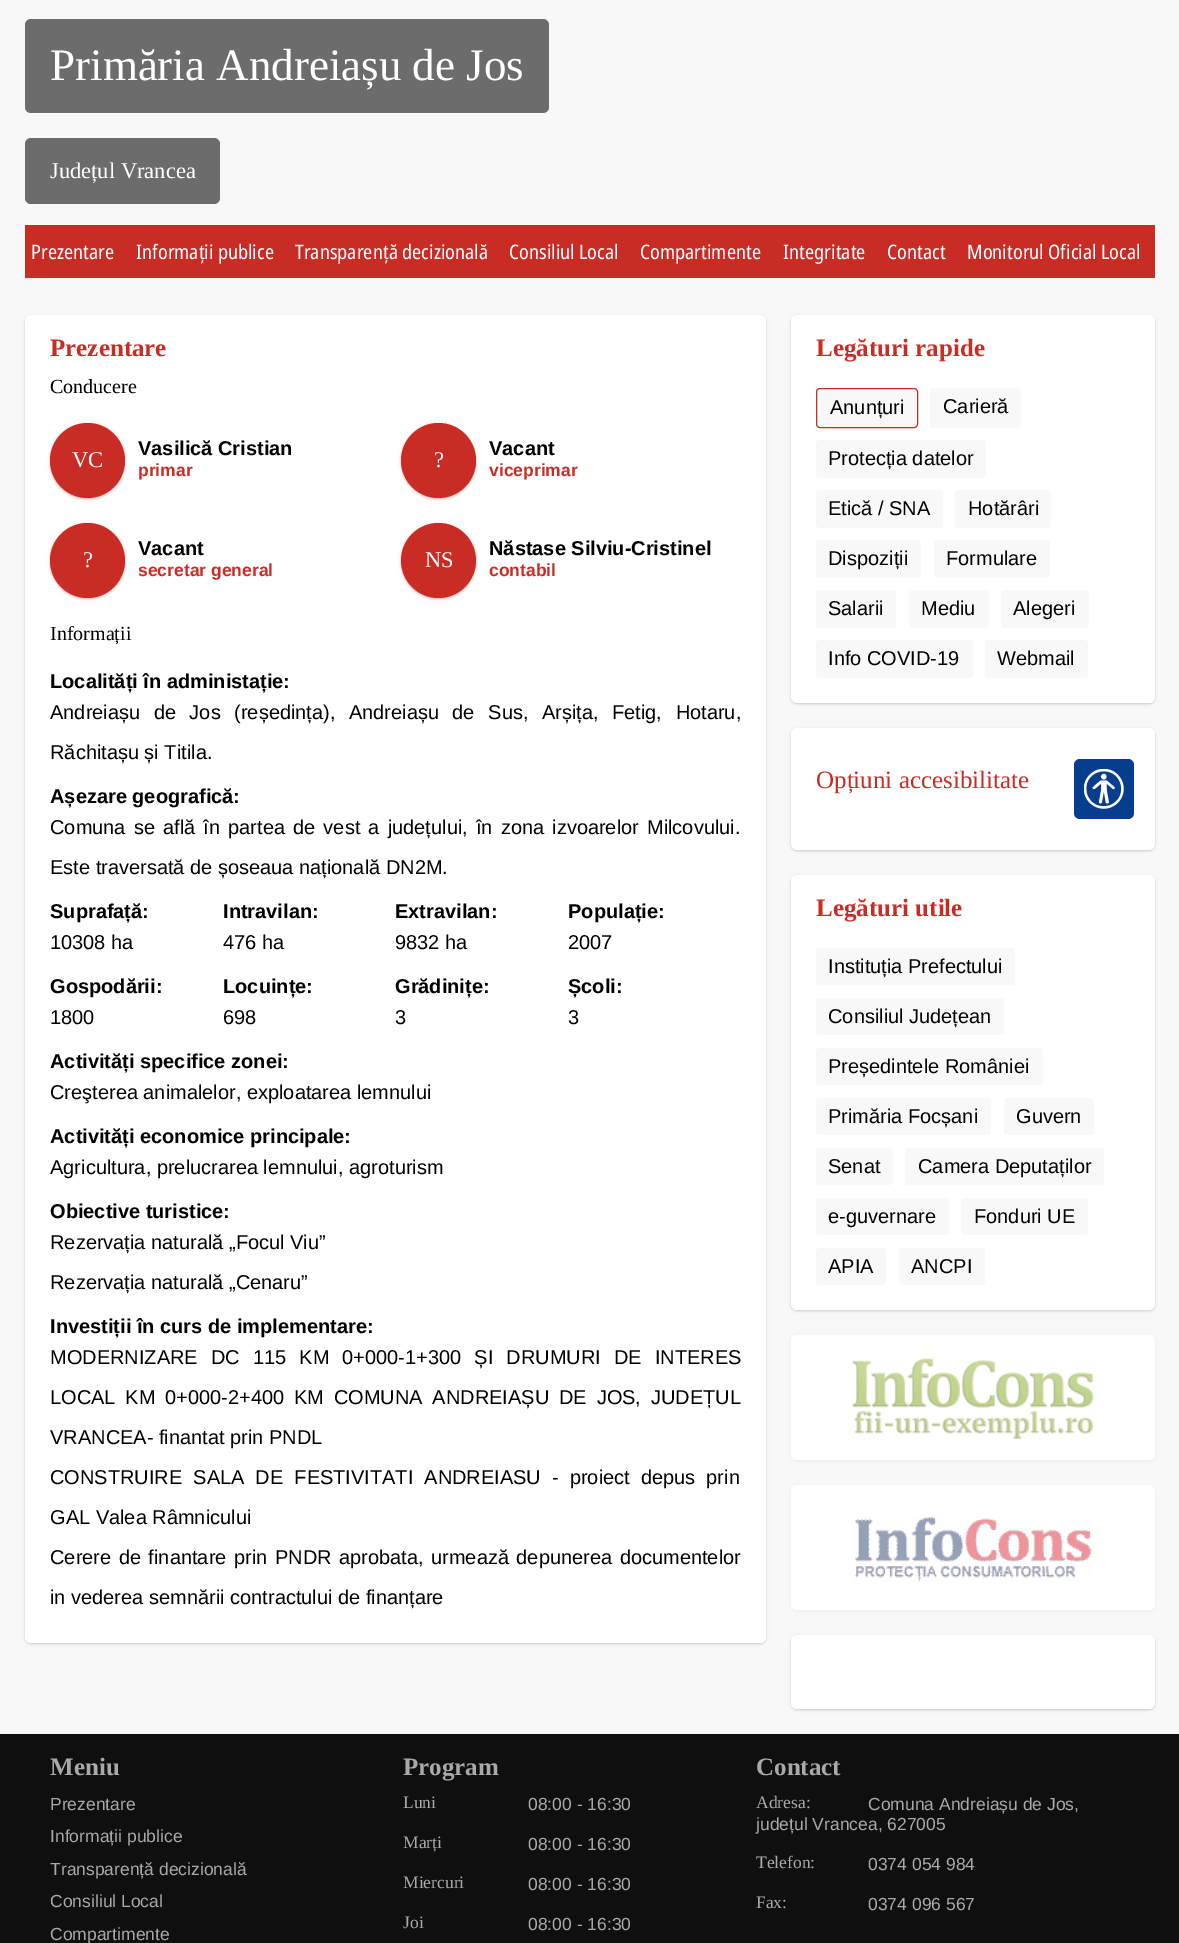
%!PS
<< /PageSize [1179 1943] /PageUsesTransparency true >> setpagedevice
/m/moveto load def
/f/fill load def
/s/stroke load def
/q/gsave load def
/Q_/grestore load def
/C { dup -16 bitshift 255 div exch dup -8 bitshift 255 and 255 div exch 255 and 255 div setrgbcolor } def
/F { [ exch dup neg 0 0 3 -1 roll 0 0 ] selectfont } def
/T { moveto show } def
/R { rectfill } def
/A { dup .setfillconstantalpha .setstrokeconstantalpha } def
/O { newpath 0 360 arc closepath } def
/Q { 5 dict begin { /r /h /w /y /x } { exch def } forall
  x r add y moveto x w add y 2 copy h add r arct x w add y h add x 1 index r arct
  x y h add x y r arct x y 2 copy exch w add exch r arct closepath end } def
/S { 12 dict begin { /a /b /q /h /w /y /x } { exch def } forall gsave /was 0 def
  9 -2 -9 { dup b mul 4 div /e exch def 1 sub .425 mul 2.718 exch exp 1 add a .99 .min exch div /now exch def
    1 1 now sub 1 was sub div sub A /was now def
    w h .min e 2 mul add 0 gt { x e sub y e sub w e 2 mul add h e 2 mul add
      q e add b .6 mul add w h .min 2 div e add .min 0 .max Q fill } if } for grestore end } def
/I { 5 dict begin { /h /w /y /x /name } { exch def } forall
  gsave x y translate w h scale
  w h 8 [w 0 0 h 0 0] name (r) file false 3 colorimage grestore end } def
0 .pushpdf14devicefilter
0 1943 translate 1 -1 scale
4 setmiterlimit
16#F8F8F8 C
0 0 1179 1943 R
16#6C6C6C C
25 19 524 94 6 Q f
/LiberationSerif-Regular 45 F
16#FFFFFF C
(Primăria Andreiașu de Jos) 50 80 T
16#6C6C6C C
25 138 195 66 6 Q f
/LiberationSerif-Regular 22.5 F
16#FFFFFF C
(Județul Vrancea) 50 178 T
16#C92B25 C
25 225 1130 53 R
/NotoSans-Regular 20 F
16#FFFFFF C
(Prezentare) 31 259 T
(Informații publice) 136 259 T
(Transparență decizională) 295 259 T
(Consiliul Local) 509 259 T
(Compartimente) 640 259 T
(Integritate) 783 259 T
(Contact) 887 259 T
(Monitorul Oficial Local) 967 259 T
16#000000 C
25 316 741 1328 6 1 .12 S
25 316 741 1328 6 2 .06 S
16#FFFFFF C
25 315 741 1328 6 Q f
/LiberationSerif-Bold 25 F
16#C92B25 C
(Prezentare) 50 356 T
/LiberationSerif-Regular 20 F
16#000000 C
(Conducere) 50 393 T
/LiberationSans-Bold 20 F
(Vasilică Cristian) 138 455 T
16#C92B25 C
50 424 75 75 37.5 1 .25 S
50 424 75 75 37.5 2 .12 S
87.5 460.5 37.5 O f
/LiberationSerif-Regular 22.5 F
16#FFFFFF C
(VC) 72 467 T
/LiberationSans-Bold 17.5 F
16#C92B25 C
(primar) 138 476 T
/LiberationSans-Bold 20 F
16#000000 C
(Vacant) 489 455 T
16#C92B25 C
401 424 75 75 37.5 1 .25 S
401 424 75 75 37.5 2 .12 S
438.5 460.5 37.5 O f
/LiberationSerif-Regular 22.5 F
16#FFFFFF C
(?) 434 467 T
/LiberationSans-Bold 17.5 F
16#C92B25 C
(viceprimar) 489 476 T
/LiberationSans-Bold 20 F
16#000000 C
(Vacant) 138 555 T
16#C92B25 C
50 524 75 75 37.5 1 .25 S
50 524 75 75 37.5 2 .12 S
87.5 560.5 37.5 O f
/LiberationSerif-Regular 22.5 F
16#FFFFFF C
(?) 83 567 T
/LiberationSans-Bold 17.5 F
16#C92B25 C
(secretar general) 138 576 T
/LiberationSans-Bold 20 F
16#000000 C
(Năstase Silviu-Cristinel) 489 555 T
16#C92B25 C
401 524 75 75 37.5 1 .25 S
401 524 75 75 37.5 2 .12 S
438.5 560.5 37.5 O f
/LiberationSerif-Regular 22.5 F
16#FFFFFF C
(NS) 425 567 T
/LiberationSans-Bold 17.5 F
16#C92B25 C
(contabil) 489 576 T
/LiberationSerif-Regular 20 F
16#000000 C
(Informații) 50 640 T
/LiberationSans-Bold 20 F
(Localități în administație:) 50 688 T
/LiberationSans-Regular 20 F
50 719 m 8 0 32 (Andreiașu de Jos \(reședința\), Andreiașu de Sus, Arșița, Fetig, Hotaru,) widthshow
(Răchitașu și Titila.) 50 759 T
/LiberationSans-Bold 20 F
(Așezare geografică:) 50 803 T
/LiberationSans-Regular 20 F
50 834 m 2.6 0 32 (Comuna se află în partea de vest a județului, în zona izvoarelor Milcovului.) widthshow
(Este traversată de șoseaua națională DN2M.) 50 874 T
/LiberationSans-Bold 20 F
(Suprafață:) 50 918 T
/LiberationSans-Regular 20 F
(10308 ha) 50 949 T
/LiberationSans-Bold 20 F
(Intravilan:) 223 918 T
/LiberationSans-Regular 20 F
(476 ha) 223 949 T
/LiberationSans-Bold 20 F
(Extravilan:) 395 918 T
/LiberationSans-Regular 20 F
(9832 ha) 395 949 T
/LiberationSans-Bold 20 F
(Populație:) 568 918 T
/LiberationSans-Regular 20 F
(2007) 568 949 T
/LiberationSans-Bold 20 F
(Gospodării:) 50 993 T
/LiberationSans-Regular 20 F
(1800) 50 1024 T
/LiberationSans-Bold 20 F
(Locuințe:) 223 993 T
/LiberationSans-Regular 20 F
(698) 223 1024 T
/LiberationSans-Bold 20 F
(Grădinițe:) 395 993 T
/LiberationSans-Regular 20 F
(3) 395 1024 T
/LiberationSans-Bold 20 F
(Școli:) 568 993 T
/LiberationSans-Regular 20 F
(3) 568 1024 T
/LiberationSans-Bold 20 F
(Activități specifice zonei:) 50 1068 T
/LiberationSans-Regular 20 F
(Creşterea animalelor, exploatarea lemnului) 50 1099 T
/LiberationSans-Bold 20 F
(Activități economice principale:) 50 1143 T
/LiberationSans-Regular 20 F
(Agricultura, prelucrarea lemnului, agroturism) 50 1174 T
/LiberationSans-Bold 20 F
(Obiective turistice:) 50 1218 T
/LiberationSans-Regular 20 F
(Rezervația naturală „Focul Viu”) 50 1249 T
(Rezervația naturală „Cenaru”) 50 1289 T
/LiberationSans-Bold 20 F
(Investiții în curs de implementare:) 50 1333 T
/LiberationSans-Regular 20 F
50 1364 m 7.5 0 32 (MODERNIZARE DC 115 KM 0+000-1+300 ȘI DRUMURI DE INTERES) widthshow
50 1404 m 4.25 0 32 (LOCAL KM 0+000-2+400 KM COMUNA ANDREIAȘU DE JOS, JUDEȚUL) widthshow
(VRANCEA- finantat prin PNDL) 50 1444 T
50 1484 m 5.5 0 32 (CONSTRUIRE SALA DE FESTIVITATI ANDREIASU - proiect depus prin) widthshow
(GAL Valea Râmnicului) 50 1524 T
50 1564 m 2 0 32 (Cerere de finantare prin PNDR aprobata, urmează depunerea documentelor) widthshow
(in vederea semnării contractului de finanțare) 50 1604 T
791 316 364 388 6 1 .12 S
791 316 364 388 6 2 .06 S
16#FFFFFF C
791 315 364 388 6 Q f
/LiberationSerif-Bold 25 F
16#C92B25 C
(Legături rapide) 816 356 T
16#F8F8F8 C
816.5 388.5 101 39 3.5 Q q f Q_
16#C92B25 C
s
/LiberationSans-Regular 20 F
16#000000 C
(Anunțuri) 830 414 T
16#F8F8F8 C
930 388 91 40 4 Q f
16#000000 C
(Carieră) 943 413 T
16#F8F8F8 C
816 440 170 38 4 Q f
16#000000 C
(Protecția datelor) 828 465 T
16#F8F8F8 C
816 490 127 38 4 Q f
16#000000 C
(Etică / SNA) 828 515 T
16#F8F8F8 C
955 490 96 38 4 Q f
16#000000 C
(Hotărâri) 968 515 T
16#F8F8F8 C
816 540 105 38 4 Q f
16#000000 C
(Dispoziții) 828 565 T
16#F8F8F8 C
934 540 116 38 4 Q f
16#000000 C
(Formulare) 946 565 T
16#F8F8F8 C
816 590 80 38 4 Q f
16#000000 C
(Salarii) 828 615 T
16#F8F8F8 C
909 590 80 38 4 Q f
16#000000 C
(Mediu) 921 615 T
16#F8F8F8 C
1001 590 88 38 4 Q f
16#000000 C
(Alegeri) 1013 615 T
16#F8F8F8 C
816 640 157 38 4 Q f
16#000000 C
(Info COVID-19) 828 665 T
16#F8F8F8 C
985 640 103 38 4 Q f
16#000000 C
(Webmail) 997 665 T
791 729 364 122 6 1 .12 S
791 729 364 122 6 2 .06 S
16#FFFFFF C
791 728 364 122 6 Q f
/LiberationSerif-Regular 25 F
16#C92B25 C
(Opțiuni accesibilitate) 816 788 T
16#063D8D C
1074 759 60 60 6 Q f
(1.rgb) 1084 769 40 40 I
16#000000 C
791 876 364 435 6 1 .12 S
791 876 364 435 6 2 .06 S
16#FFFFFF C
791 875 364 435 6 Q f
/LiberationSerif-Bold 25 F
16#C92B25 C
(Legături utile) 816 916 T
16#F8F8F8 C
816 948 199 37 4 Q f
/LiberationSans-Regular 20 F
16#000000 C
(Instituția Prefectului) 828 973 T
16#F8F8F8 C
816 998 188 37 4 Q f
16#000000 C
(Consiliul Județean) 828 1023 T
16#F8F8F8 C
816 1048 227 37 4 Q f
16#000000 C
(Președintele României) 828 1073 T
16#F8F8F8 C
816 1098 175 37 4 Q f
16#000000 C
(Primăria Focșani) 828 1123 T
16#F8F8F8 C
1004 1098 90 37 4 Q f
16#000000 C
(Guvern) 1016 1123 T
16#F8F8F8 C
816 1148 77 37 4 Q f
16#000000 C
(Senat) 828 1173 T
16#F8F8F8 C
905 1148 199 37 4 Q f
16#000000 C
(Camera Deputaților) 918 1173 T
16#F8F8F8 C
816 1198 133 37 4 Q f
16#000000 C
(e-guvernare) 828 1223 T
16#F8F8F8 C
961 1198 127 37 4 Q f
16#000000 C
(Fonduri UE) 974 1223 T
16#F8F8F8 C
816 1248 70 37 4 Q f
16#000000 C
(APIA) 828 1273 T
16#F8F8F8 C
899 1248 86 37 4 Q f
16#000000 C
(ANCPI) 911 1273 T
791 1336 364 125 6 2 .06 S
16#FFFFFF C
791 1335 364 125 6 Q f
(2.rgb) 852 1358 242 81 I
0.5 A
791 1335 364 125 6 Q f
1 A
16#000000 C
791 1486 364 125 6 2 .06 S
16#FFFFFF C
791 1485 364 125 6 Q f
(3.rgb) 854 1517 238 65 I
0.5 A
791 1485 364 125 6 Q f
1 A
16#000000 C
791 1636 364 74 6 1 .12 S
791 1636 364 74 6 2 .06 S
16#FFFFFF C
791 1635 364 74 6 Q f
16#0F0F0F C
0 1734 1179 209 R
/LiberationSerif-Bold 25 F
16#A9A9A9 C
(Meniu) 50 1775 T
/LiberationSans-Regular 17.5 F
(Prezentare) 50 1810 T
(Informații publice) 50 1842 T
(Transparență decizională) 50 1875 T
(Consiliul Local) 50 1907 T
(Compartimente) 50 1940 T
/LiberationSerif-Bold 25 F
(Program) 403 1775 T
/LiberationSerif-Regular 17.5 F
(Luni) 403 1808 T
/LiberationSans-Regular 17.5 F
(08:00 - 16:30) 528 1810 T
/LiberationSerif-Regular 17.5 F
(Marți) 403 1848 T
/LiberationSans-Regular 17.5 F
(08:00 - 16:30) 528 1850 T
/LiberationSerif-Regular 17.5 F
(Miercuri) 403 1888 T
/LiberationSans-Regular 17.5 F
(08:00 - 16:30) 528 1890 T
/LiberationSerif-Regular 17.5 F
(Joi) 403 1928 T
/LiberationSans-Regular 17.5 F
(08:00 - 16:30) 528 1930 T
/LiberationSerif-Bold 25 F
(Contact) 756 1775 T
/LiberationSerif-Regular 17.5 F
(Adresa:) 756 1808 T
/LiberationSans-Regular 17.5 F
(Comuna Andreiașu de Jos,) 868 1810 T
(județul Vrancea, 627005) 756 1830 T
/LiberationSerif-Regular 17.5 F
(Telefon:) 756 1868 T
/LiberationSans-Regular 17.5 F
(0374 054 984) 868 1870 T
/LiberationSerif-Regular 17.5 F
(Fax:) 756 1908 T
/LiberationSans-Regular 17.5 F
(0374 096 567) 868 1910 T
.poppdf14devicefilter showpage
